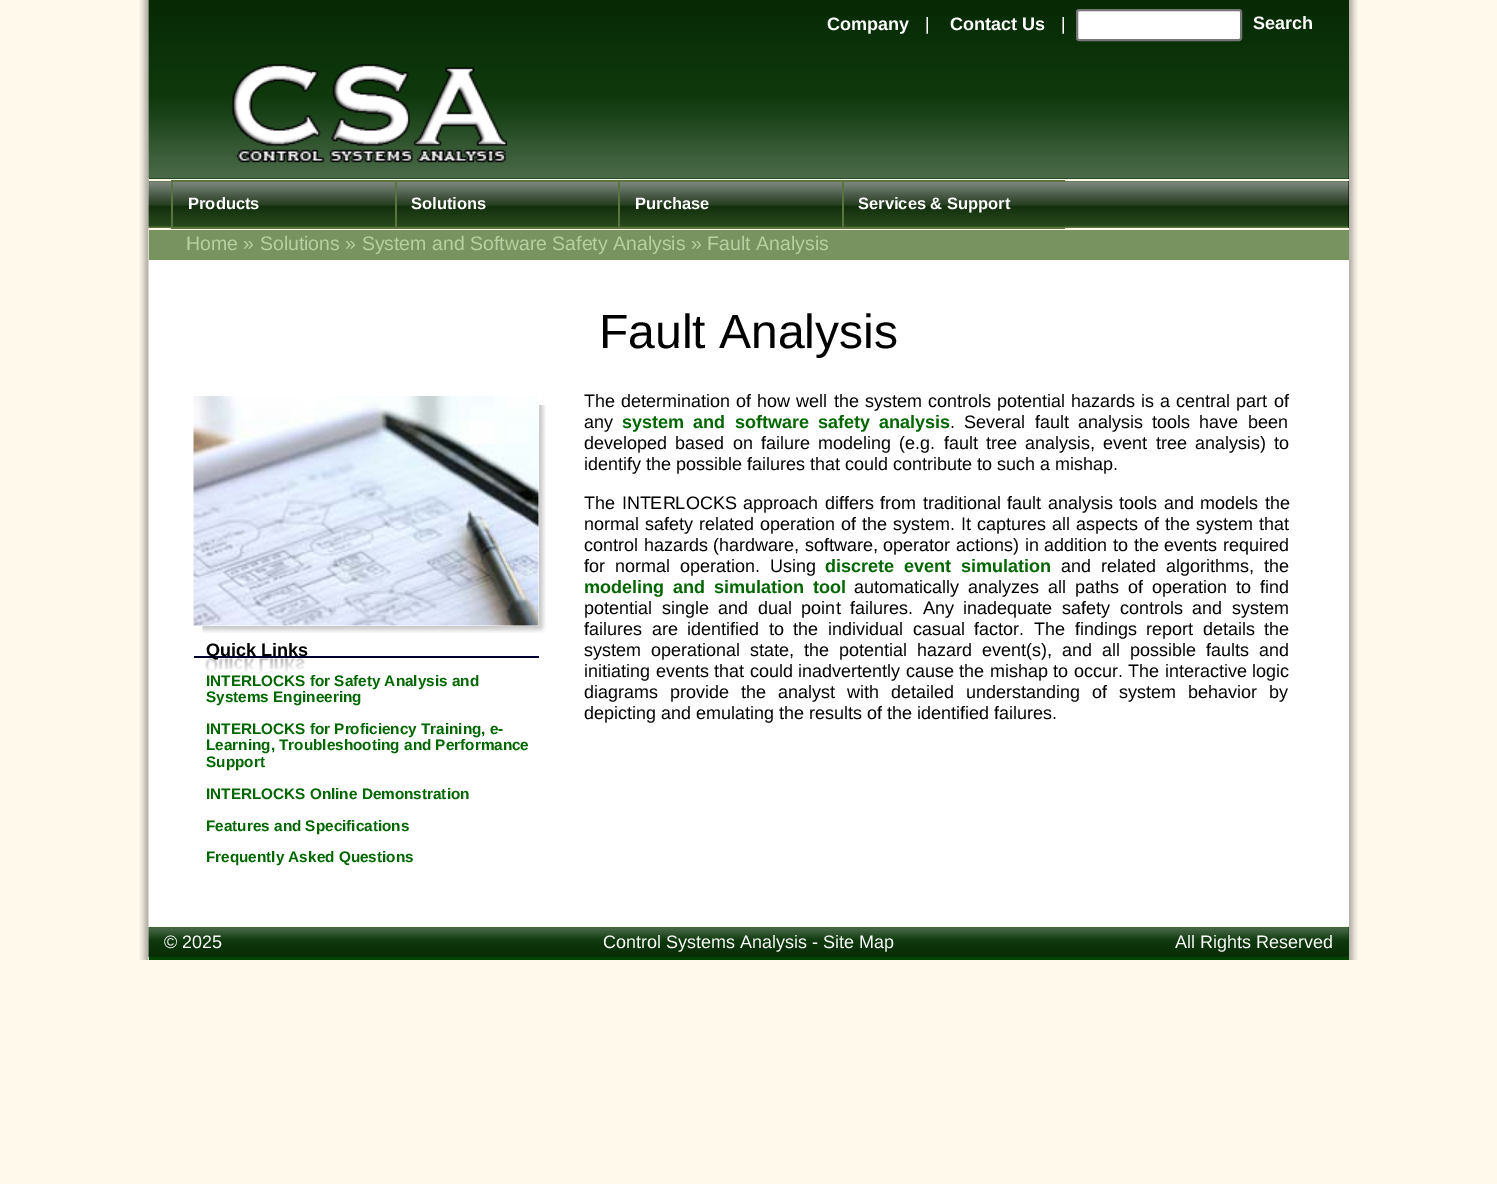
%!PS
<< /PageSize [1497 1184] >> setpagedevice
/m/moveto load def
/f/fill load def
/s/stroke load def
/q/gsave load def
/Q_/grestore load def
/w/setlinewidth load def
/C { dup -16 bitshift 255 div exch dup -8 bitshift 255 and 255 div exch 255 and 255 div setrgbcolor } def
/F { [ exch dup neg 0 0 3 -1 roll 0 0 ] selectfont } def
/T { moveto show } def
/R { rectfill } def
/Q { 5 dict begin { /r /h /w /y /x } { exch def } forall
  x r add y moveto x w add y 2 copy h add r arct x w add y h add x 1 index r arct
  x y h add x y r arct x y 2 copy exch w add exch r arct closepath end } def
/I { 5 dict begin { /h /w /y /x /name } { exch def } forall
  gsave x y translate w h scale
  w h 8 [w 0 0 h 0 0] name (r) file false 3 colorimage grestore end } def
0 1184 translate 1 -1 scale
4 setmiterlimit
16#FFF9EC C
0 0 1497 1184 R
(1.rgb) 139 0 1219 960 I
16#072A05 C
149 0 1200 179 R
(2.rgb) 148 0 1201 179 I
/LiberationSans-Bold 18 F
16#FFFFFF C
(Company) 827 30 T
/LiberationSans-Regular 18 F
(|) 925 30 T
/LiberationSans-Bold 18 F
(Contact Us) 950 30 T
/LiberationSans-Regular 18 F
(|) 1061 30 T
1077 10 164 30 2 Q q f Q_
16#767676 C
2 w
s
/LiberationSans-Bold 18 F
16#FFFFFF C
(Search) 1253 29 T
(3.rgb) 231 64 276 99 I
16#000000 C
1348 181 1 47 R
(4.rgb) 148 180 1201 48 I
16#FFF9EC C
149 179 1200 2 R
1348 228 1 2 R
(5.rgb) 173 182 222 45 I
16#59753D C
171 180 224 2 R
171 228 894 1 R
171 180 2 48 R
/LiberationSans-Bold 16.5 F
16#FFFFFF C
(Products) 188 209 T
(6.rgb) 394 181 224 46 I
16#59753D C
395 180 447 2 R
395 180 2 48 R
16#FFFFFF C
(Solutions) 411 209 T
(5.rgb) 620 182 222 45 I
16#59753D C
618 180 2 48 R
16#FFFFFF C
(Purchase) 635 209 T
(6.rgb) 841 181 224 46 I
16#59753D C
842 180 223 2 R
842 180 2 48 R
16#FFFFFF C
(Services & Support) 858 209 T
16#799360 C
149 230 1200 30 R
/LiberationSans-Regular 19.5 F
16#B7D0A0 C
(Home » Solutions » System and Software Safety Analysis » Fault Analysis) 186 250 T
16#FFFFFF C
149 260 1200 666 R
/LiberationSans-Regular 48 F
16#000000 C
(Fault Analysis) 599 348 T
/LiberationSans-Regular 18 F
584 407 m 1.1 0 32 (The determination of how well the system controls potential hazards is a central part of) widthshow
(any) 584 428 T
/LiberationSans-Bold 18 F
16#006600 C
622 428 m 4.25 0 32 (system and software safety analysis) widthshow
/LiberationSans-Regular 18 F
16#000000 C
950 428 m 4.25 0 32 (. Several fault analysis tools have been) widthshow
584 449 m 3.25 0 32 (developed based on failure modeling \(e.g. fault tree analysis, event tree analysis\) to) widthshow
(identify the possible failures that could contribute to such a mishap.) 584 470 T
584 509 m 1.5 0 32 (The INTERLOCKS approach differs from traditional fault analysis tools and models the) widthshow
584 530 m 1 0 32 (normal safety related operation of the system. It captures all aspects of the system that) widthshow
584 551 m .6 0 32 (control hazards \(hardware, software, operator actions\) in addition to the events required) widthshow
584 572 m 5 0 32 (for normal operation. Using) widthshow
/LiberationSans-Bold 18 F
16#006600 C
825 572 m 5 0 32 (discrete event simulation) widthshow
/LiberationSans-Regular 18 F
16#000000 C
1061 572 m 5 0 32 (and related algorithms, the) widthshow
/LiberationSans-Bold 18 F
16#006600 C
584 593 m 4 0 32 (modeling and simulation tool) widthshow
/LiberationSans-Regular 18 F
16#000000 C
854 593 m 4 0 32 (automatically analyzes all paths of operation to find) widthshow
584 614 m 4.6 0 32 (potential single and dual point failures. Any inadequate safety controls and system) widthshow
584 635 m 4.6 0 32 (failures are identified to the individual casual factor. The findings report details the) widthshow
584 656 m 5 0 32 (system operational state, the potential hazard event\(s\), and all possible faults and) widthshow
584 677 m .5 0 32 (initiating events that could inadvertently cause the mishap to occur. The interactive logic) widthshow
584 698 m 7 0 32 (diagrams provide the analyst with detailed understanding of system behavior by) widthshow
(depicting and emulating the results of the identified failures.) 584 719 T
(7.rgb) 202 405 344 228 I
16#FFFFFF C
202 405 337 221 R
(8.rgb) 193 396 346 230 I
(9.rgb) 205 658 100 14 I
16#000033 C
194 656 345 2 R
/LiberationSans-Bold 18 F
16#000000 C
(Quick Links) 206 656 T
/LiberationSans-Bold 15.3 F
16#006600 C
(INTERLOCKS for Safety Analysis and) 206 686 T
(Systems Engineering) 206 702 T
(INTERLOCKS for Proficiency Training, e-) 206 734 T
(Learning, Troubleshooting and Performance) 206 750 T
(Support) 206 767 T
(INTERLOCKS Online Demonstration) 206 799 T
(Features and Specifications) 206 831 T
(Frequently Asked Questions) 206 862 T
16#004400 C
149 927 1200 33 R
(10.rgb) 148 927 1201 30 I
/LiberationSans-Regular 18 F
16#FFFFFF C
(© 2025) 164 948 T
(Control Systems Analysis - Site Map) 603 948 T
(All Rights Reserved) 1175 948 T
showpage
